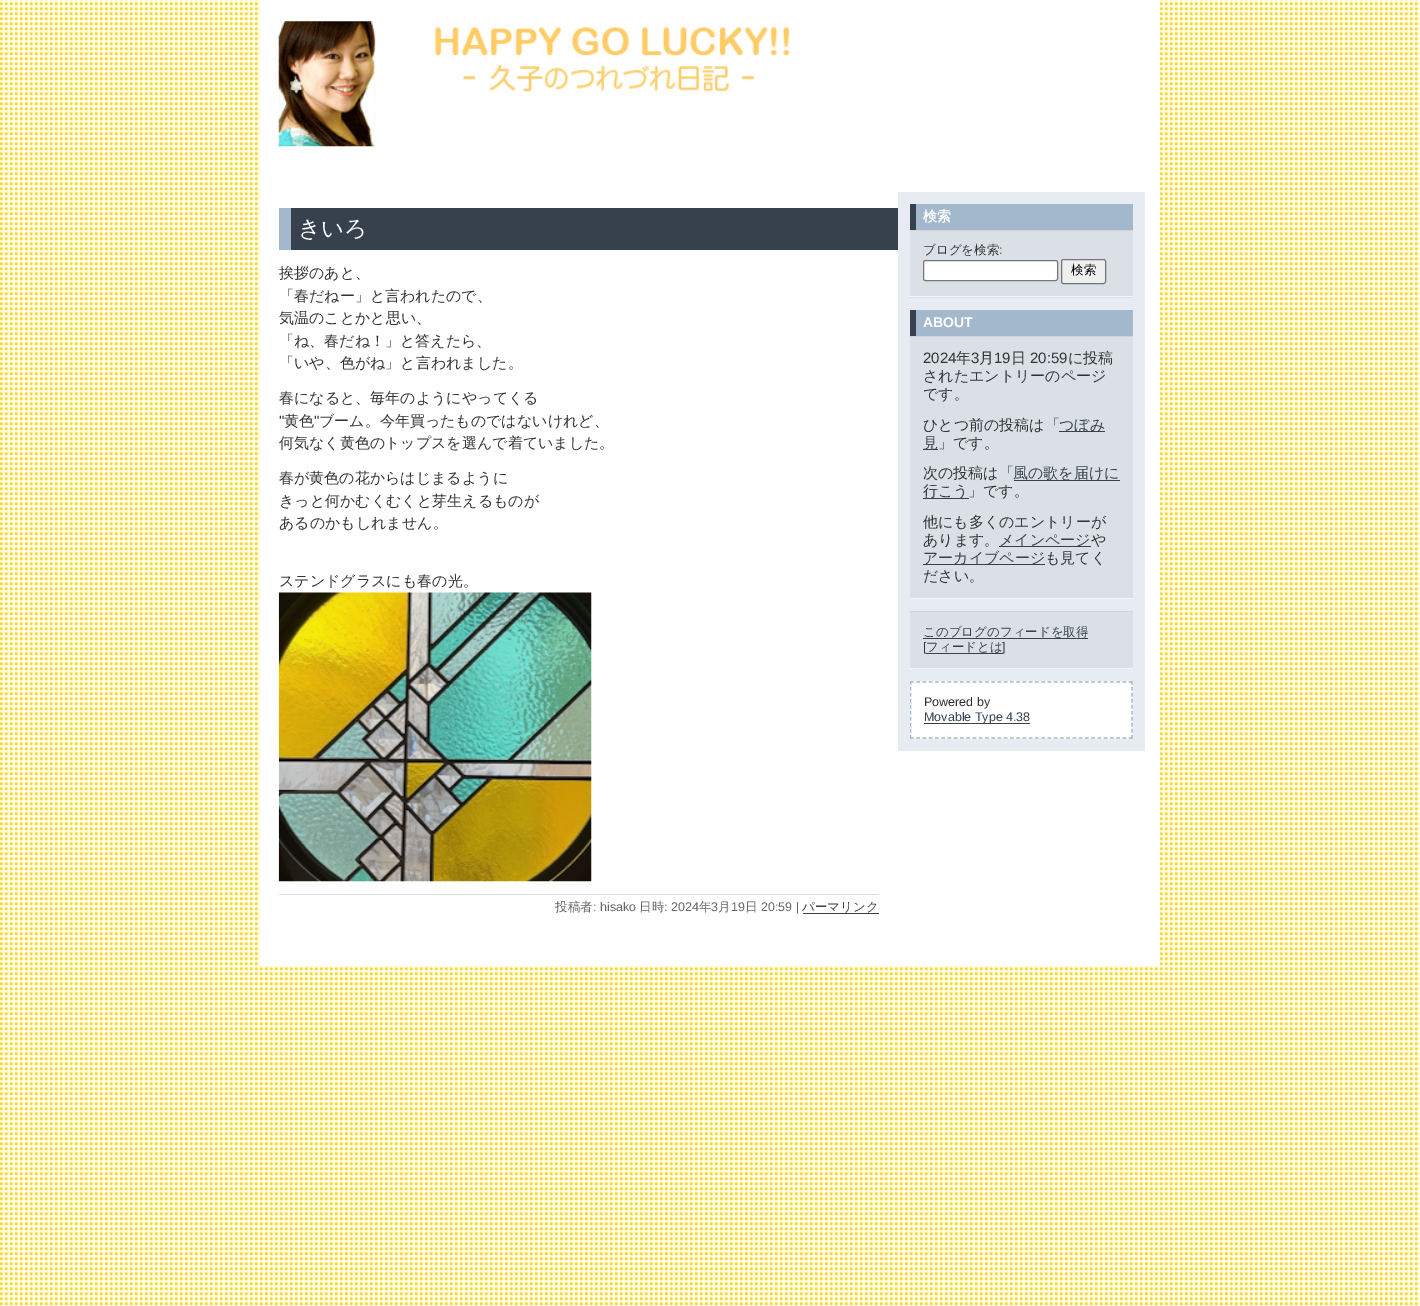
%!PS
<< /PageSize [1420 1306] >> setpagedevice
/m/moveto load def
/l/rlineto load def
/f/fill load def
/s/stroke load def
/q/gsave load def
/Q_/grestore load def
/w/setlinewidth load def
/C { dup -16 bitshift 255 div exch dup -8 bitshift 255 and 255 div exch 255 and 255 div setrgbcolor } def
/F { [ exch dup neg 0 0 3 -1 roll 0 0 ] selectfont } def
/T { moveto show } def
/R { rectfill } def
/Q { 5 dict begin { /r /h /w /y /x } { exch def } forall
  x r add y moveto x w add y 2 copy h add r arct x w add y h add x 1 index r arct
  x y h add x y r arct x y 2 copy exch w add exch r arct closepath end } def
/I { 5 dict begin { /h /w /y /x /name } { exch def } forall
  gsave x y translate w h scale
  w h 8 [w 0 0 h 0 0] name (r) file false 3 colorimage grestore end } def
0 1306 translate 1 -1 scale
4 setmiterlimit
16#FFFFFF C
0 0 1420 1306 R
(1.rgb) 0 0 1420 1306 I
260 0 900 966 R
(2.rgb) 278 21 513 126 I
16#36414D C
291 208 607 42 R
16#A3B8CC C
279 208 12 42 R
/WenQuanYiZenHei-Medium 22.5 F
16#FFFFFF C
(きいろ) 298 236 T
/WenQuanYiZenHei-Medium 15 F
16#333333 C
(挨拶のあと、) 279 278 T
(「春だねー」と言われたので、) 279 301 T
(気温のことかと思い、) 279 323 T
(「ね、春だね！」と答えたら、) 279 346 T
(「いや、色がね」と言われました。) 279 368 T
(春になると、毎年のようにやってくる) 279 403 T
/LiberationSans-Regular 15 F
(") 279 426 T
/WenQuanYiZenHei-Medium 15 F
(黄色) 284 426 T
/LiberationSans-Regular 15 F
(") 314 426 T
/WenQuanYiZenHei-Medium 15 F
(ブーム。今年買ったものではないけれど、) 319 426 T
(何気なく黄色のトップスを選んで着ていました。) 279 448 T
(春が黄色の花からはじまるように) 279 483 T
(きっと何かむくむくと芽生えるものが) 279 506 T
(あるのかもしれません。) 279 528 T
(ステンドグラスにも春の光。) 279 586 T
(3.rgb) 278 592 314 290 I
16#DAE0E6 C
279 894 600 1 R
/WenQuanYiZenHei-Medium 12.5 F
16#666666 C
(投稿者) 555 911 T
/LiberationSans-Regular 12.5 F
(: hisako) 593 911 T
/WenQuanYiZenHei-Medium 12.5 F
(日時) 639 911 T
/LiberationSans-Regular 12.5 F
(: 2024) 664 911 T
/WenQuanYiZenHei-Medium 12.5 F
(年) 699 911 T
/LiberationSans-Regular 12.5 F
(3) 711 911 T
/WenQuanYiZenHei-Medium 12.5 F
(月) 718 911 T
/LiberationSans-Regular 12.5 F
(19) 731 911 T
/WenQuanYiZenHei-Medium 12.5 F
(日) 745 911 T
/LiberationSans-Regular 12.5 F
(20:59 |) 761 911 T
/WenQuanYiZenHei-Medium 12.5 F
16#36414D C
(パーマリンク) 802 911 T
803 913 76 1 R
16#E6ECF2 C
898 192 247 559 R
16#DAE0E6 C
910 231 223 67 R
16#F3F6F9 C
910 296 223 1 R
16#A3B8CC C
916 204 217 26 R
16#36414D C
910 204 6 26 R
/WenQuanYiZenHei-Bold 14 F
16#FFFFFF C
(検索) 923 221 T
16#CFD4D9 C
910 230 223 1 R
/WenQuanYiZenHei-Medium 12.5 F
16#333333 C
(ブログを検索) 923 254 T
/LiberationSans-Regular 12.5 F
(:) 999 254 T
16#FFFFFF C
923.5 260.5 134 20 2 Q q f Q_
16#767676 C
s
16#EFEFEF C
1061.5 259.5 44 24 2 Q q f Q_
16#767676 C
s
/WenQuanYiZenHei-Medium 12.5 F
16#000000 C
(検索) 1071 274 T
16#DAE0E6 C
910 337 223 261 R
16#F3F6F9 C
910 598 223 1 R
16#A3B8CC C
916 310 217 26 R
16#36414D C
910 310 6 26 R
/LiberationSans-Bold 14 F
16#FFFFFF C
(ABOUT) 923 327 T
16#CFD4D9 C
910 336 223 1 R
/LiberationSans-Regular 15 F
16#333333 C
(2024) 923 363 T
/WenQuanYiZenHei-Medium 15 F
(年) 956 363 T
/LiberationSans-Regular 15 F
(3) 971 363 T
/WenQuanYiZenHei-Medium 15 F
(月) 979 363 T
/LiberationSans-Regular 15 F
(19) 994 363 T
/WenQuanYiZenHei-Medium 15 F
(日) 1011 363 T
/LiberationSans-Regular 15 F
(20:59) 1030 363 T
/WenQuanYiZenHei-Medium 15 F
(に投稿) 1068 363 T
(されたエントリーのページ) 923 381 T
(です。) 923 399 T
(ひとつ前の投稿は「) 923 430 T
16#36414D C
1059 431 46 1 R
(つぼみ) 1059 430 T
923 449 15 1 R
(見) 923 448 T
16#333333 C
(」です。) 938 448 T
(次の投稿は「) 923 478 T
16#36414D C
1014 480 106 1 R
(風の歌を届けに) 1013 478 T
923 498 46 1 R
(行こう) 923 496 T
16#333333 C
(」です。) 968 496 T
(他にも多くのエントリーが) 923 527 T
(あります。) 923 545 T
16#36414D C
999 546 92 1 R
(メインページ) 999 545 T
16#333333 C
(や) 1091 545 T
16#36414D C
923 564 122 1 R
(アーカイブページ) 923 563 T
16#333333 C
(も見てく) 1045 563 T
(ださい。) 923 581 T
16#DAE0E6 C
910 612 223 56 R
16#F3F6F9 C
910 668 223 1 R
16#CFD4D9 C
910 611 223 1 R
/WenQuanYiZenHei-Medium 12.5 F
16#36414D C
(このブログのフィードを取得) 923 636 T
923 638 165 1 R
/LiberationSans-Regular 12.5 F
16#333333 C
([) 923 651 T
/WenQuanYiZenHei-Medium 12.5 F
16#36414D C
(フィードとは) 926 651 T
926 653 77 1 R
/LiberationSans-Regular 12.5 F
16#333333 C
(]) 1002 651 T
16#FFFFFF C
910 681 223 58 R
16#A3B8CC C
1.2 w
[3.75 2.5] 0 setdash
910 682 m 222.5 0 l s
[3.75 2.23] 0 setdash
1132 681 m 0 58 l s
[3.75 2.5] 0 setdash
910 738 m 222.5 0 l s
q
910 681 223 58 rectclip
[3.75 2.23] 0 setdash
910.5 681 m 0 58 l s
Q_
16#292E33 C
(Powered by) 924 706 T
16#36414D C
924 723 106 1 R
(Movable Type 4.38) 924 721 T
showpage
